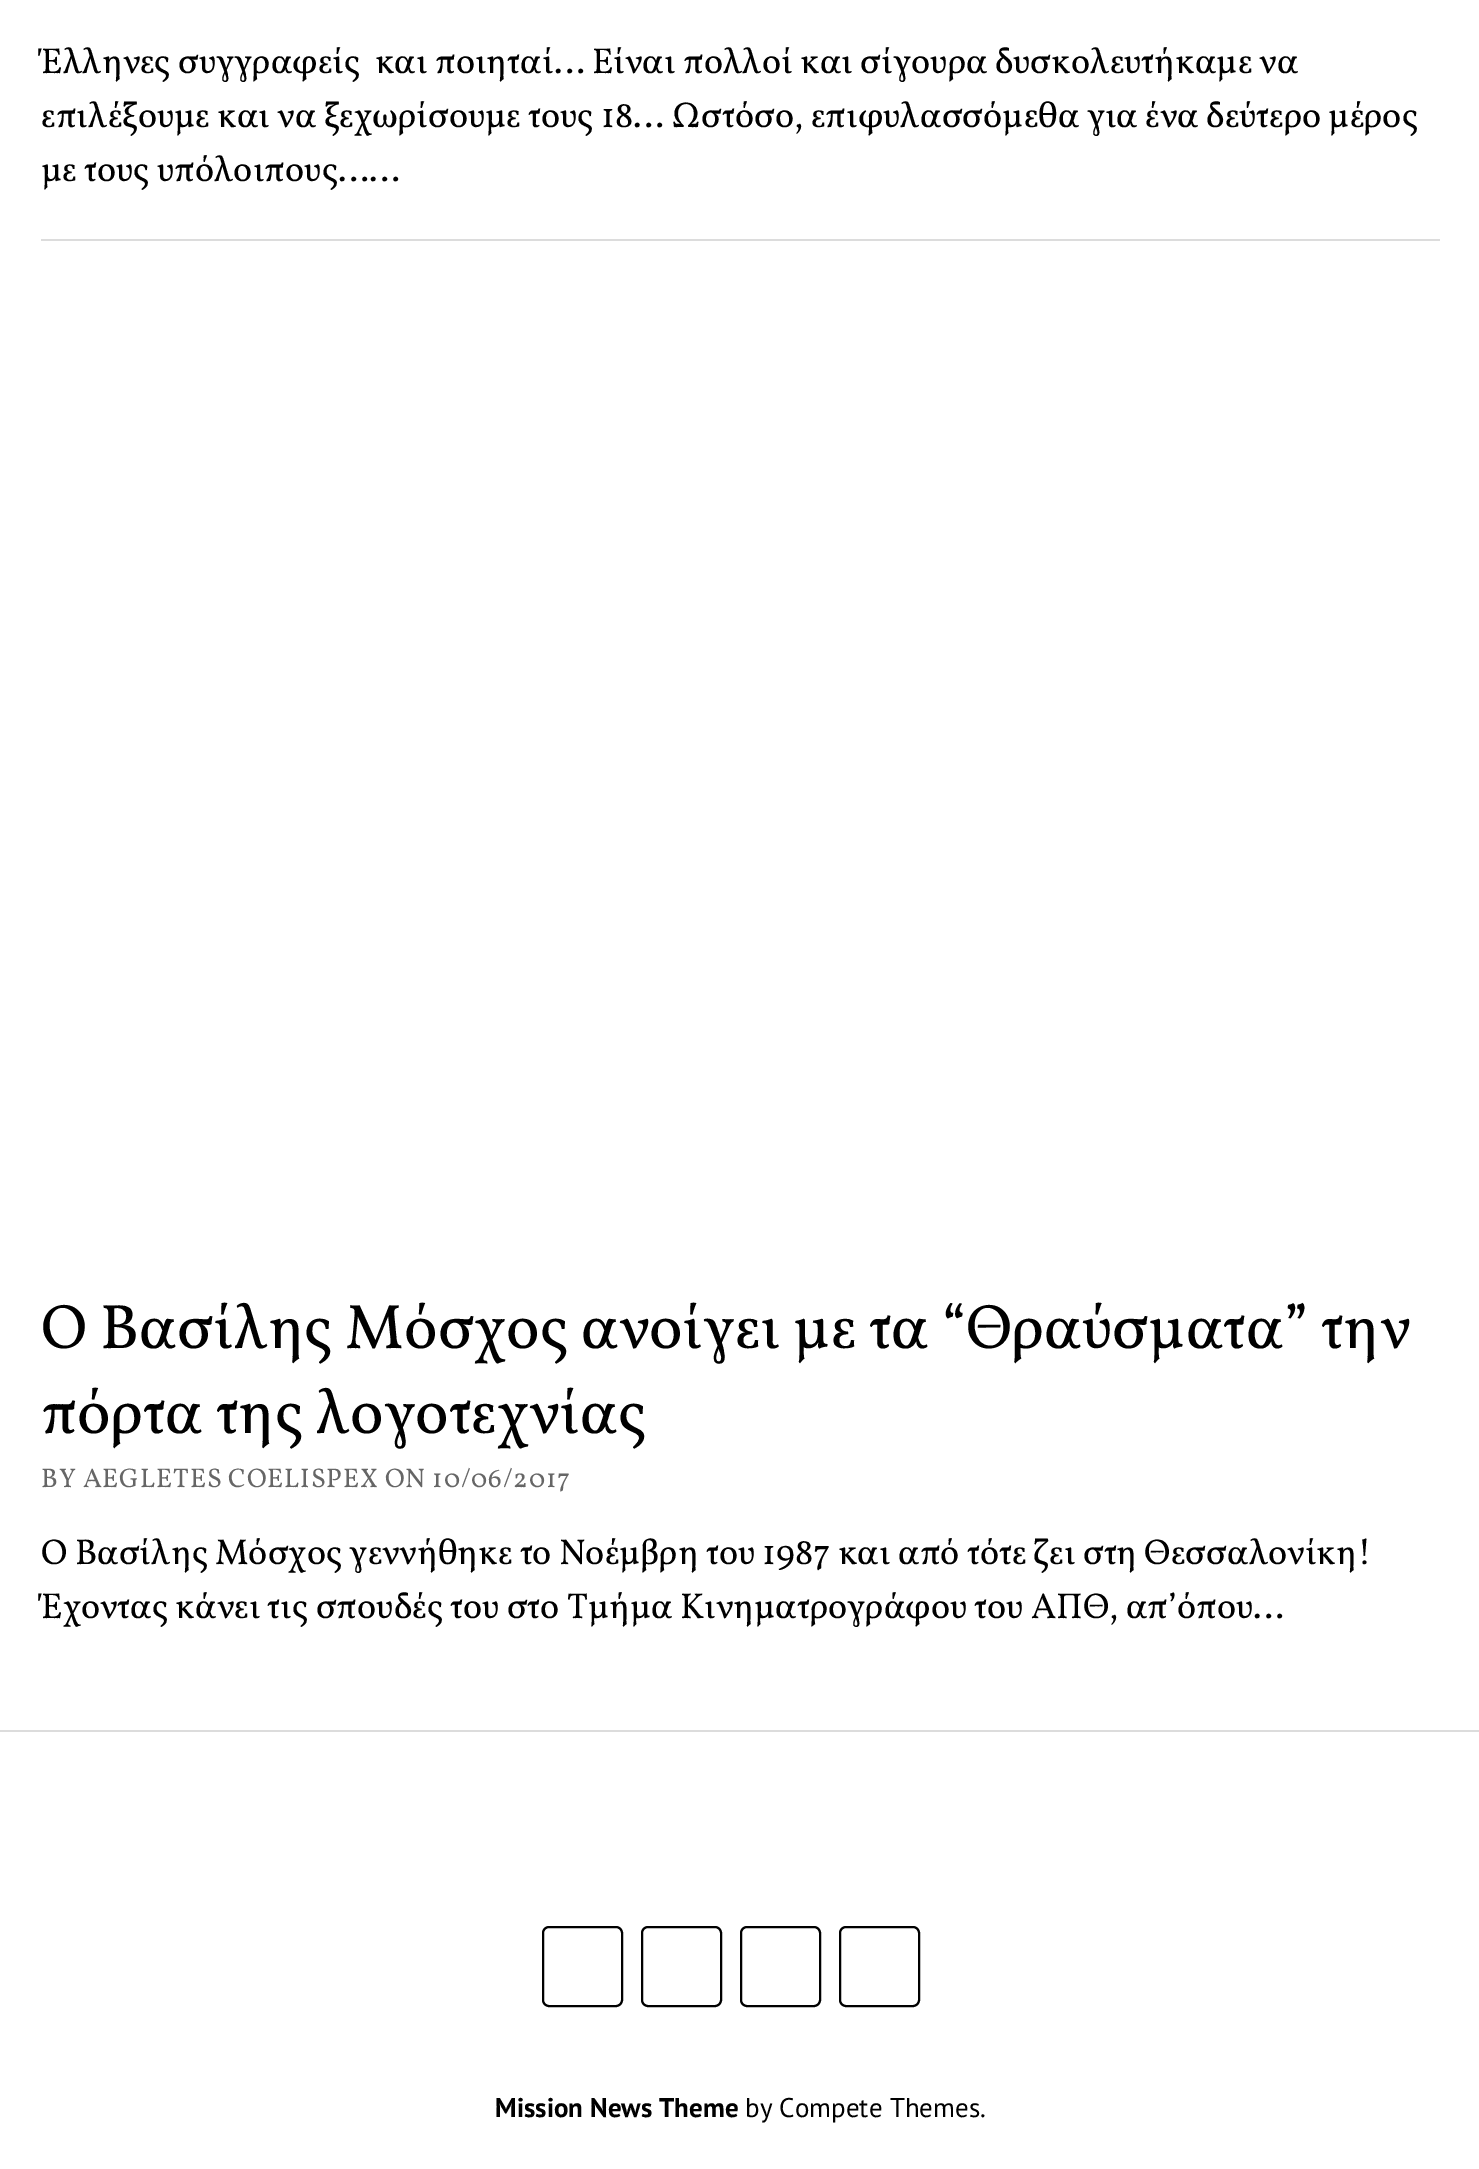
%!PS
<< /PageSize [1479 2169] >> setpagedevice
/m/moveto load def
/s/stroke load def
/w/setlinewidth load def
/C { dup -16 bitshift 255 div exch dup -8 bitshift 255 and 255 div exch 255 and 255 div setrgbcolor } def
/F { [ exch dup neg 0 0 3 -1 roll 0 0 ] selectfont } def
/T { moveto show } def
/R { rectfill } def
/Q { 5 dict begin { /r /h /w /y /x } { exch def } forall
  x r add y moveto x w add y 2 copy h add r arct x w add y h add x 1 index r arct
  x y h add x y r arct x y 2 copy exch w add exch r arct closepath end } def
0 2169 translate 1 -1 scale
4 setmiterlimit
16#FFFFFF C
0 0 1479 2169 R
16#DCDCDC C
41 239 1399 2 R
/Vollkorn-Regular 36 F
16#000000 C
(Έλληνες συγγραφείς  και ποιηταί… Είναι πολλοί και σίγουρα δυσκολευτήκαμε να) 41 73 T
(επιλέξουμε και να ξεχωρίσουμε τους 18… Ωστόσο, επιφυλασσόμεθα για ένα δεύτερο μέρος) 41 127 T
(με τους υπόλοιπους……) 41 181 T
/Vollkorn-Regular 63 F
(Ο Βασίλης Μόσχος ανοίγει με τα “Θραύσματα” την) 41 1348 T
(πόρτα της λογοτεχνίας) 41 1433 T
/Vollkorn-Regular 27 F
16#666666 C
41 1487 m .8 0 (BY AEGLETES COELISPEX ON 10/06/2017) ashow
/Vollkorn-Regular 36 F
16#000000 C
(Ο Βασίλης Μόσχος γεννήθηκε το Νοέμβρη του 1987 και από τότε ζει στη Θεσσαλονίκη!) 41 1564 T
(Έχοντας κάνει τις σπουδές του στο Τμήμα Κινηματρογράφου του ΑΠΘ, απ’όπου…) 41 1618 T
16#DCDCDC C
0 1730 1479 2 R
16#000000 C
2 w
543 1927 79 79 6 Q s
642 1927 79 79 6 Q s
741 1927 79 79 6 Q s
840 1927 79 79 6 Q s
/PTSans-Bold 27 F
(Mission News Theme) 495 2117 T
/PTSans-Regular 27 F
(by Compete Themes.) 745 2117 T
showpage
